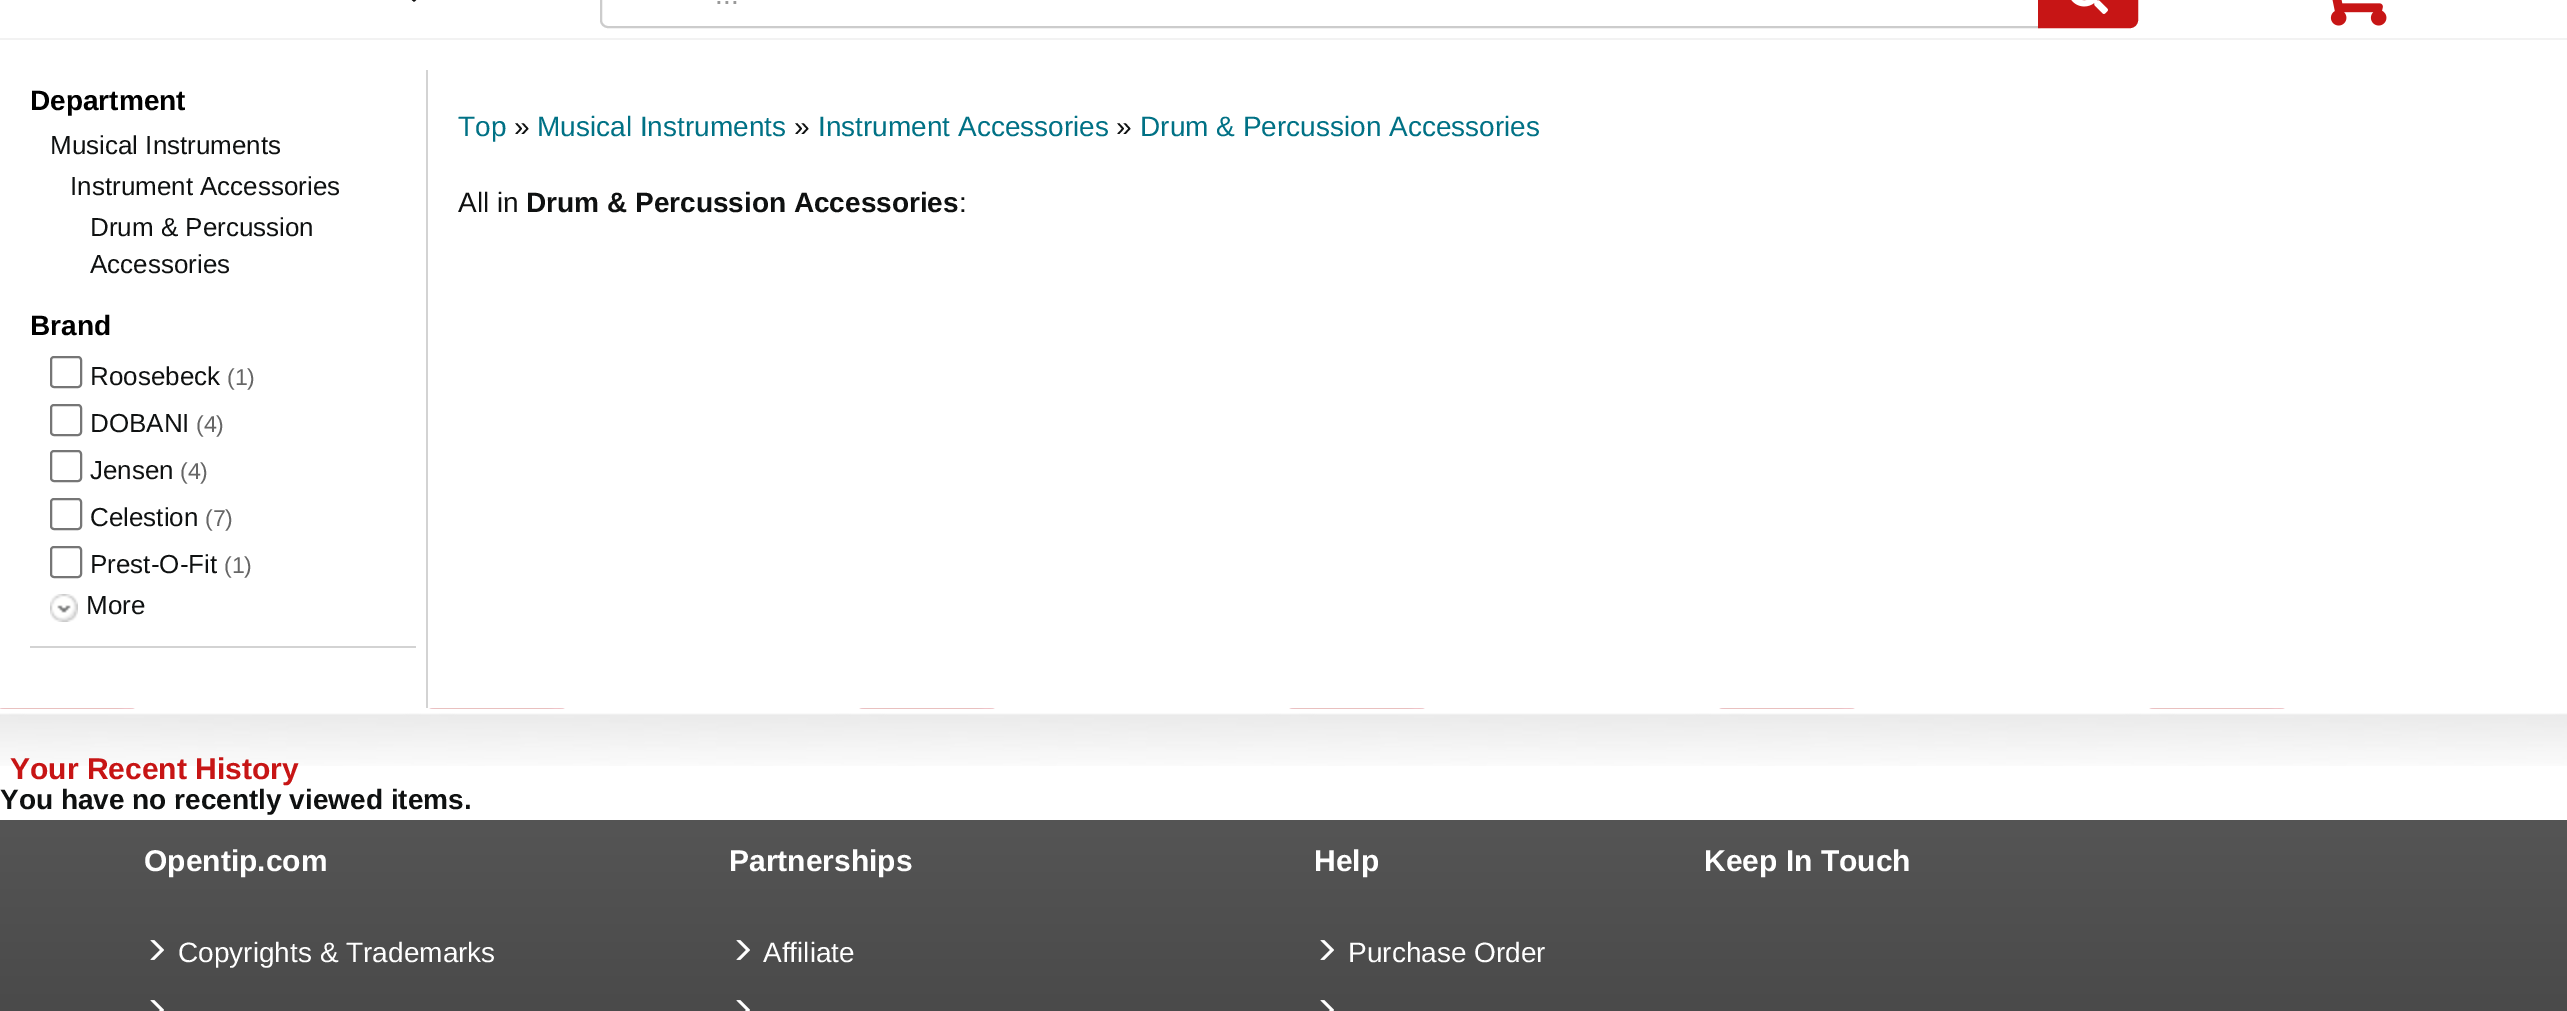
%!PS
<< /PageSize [2567 1011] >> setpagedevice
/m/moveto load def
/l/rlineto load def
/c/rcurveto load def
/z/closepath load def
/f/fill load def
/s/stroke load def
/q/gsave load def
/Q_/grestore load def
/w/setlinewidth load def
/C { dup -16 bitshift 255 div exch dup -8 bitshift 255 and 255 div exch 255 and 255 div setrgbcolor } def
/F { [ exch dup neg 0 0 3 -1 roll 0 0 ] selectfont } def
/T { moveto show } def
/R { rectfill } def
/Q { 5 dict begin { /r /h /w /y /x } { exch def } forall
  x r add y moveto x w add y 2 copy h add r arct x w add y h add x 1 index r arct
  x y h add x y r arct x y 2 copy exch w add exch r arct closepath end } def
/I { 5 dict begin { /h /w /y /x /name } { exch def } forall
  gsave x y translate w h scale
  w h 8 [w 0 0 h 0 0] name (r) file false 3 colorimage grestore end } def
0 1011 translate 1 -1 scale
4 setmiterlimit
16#FFFFFF C
0 0 2567 1011 R
16#F2F2F2 C
0 38 2567 2 R
16#111111 C
411 -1 m 13 -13 l 3 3 l -13 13 l z f
16#CCCCCC C
2 w
608 -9 m 1431 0 l 0 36 l -1431 0 l -4 0 -7 -3 -7 -7 c 0 -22 l 0 -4 3 -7 7 -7 c z s
/LiberationSans-Regular 28 F
16#999999 C
(...) 715 4 T
16#C71515 C
2039 -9 m 91 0 l 4 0 7 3 7 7 c 0 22 l 0 4 -3 7 -7 7 c -91 0 l z q f Q_
s
(1.rgb) 2071 0 37 14 I
(2.rgb) 2330 0 57 26 I
16#D3D3D3 C
426 70 2 638 R
30 646 386 2 R
/LiberationSans-Bold 28 F
16#000000 C
(Department) 30 110 T
/LiberationSans-Regular 26 F
16#0F1111 C
(Musical Instruments) 50 154 T
(Instrument Accessories) 70 195 T
(Drum & Percussion) 90 236 T
(Accessories) 90 273 T
/LiberationSans-Bold 28 F
16#000000 C
(Brand) 30 335 T
16#767676 C
51 357 30 30 3 Q s
/LiberationSans-Regular 26 F
16#0F1111 C
(Roosebeck) 90 385 T
/LiberationSans-Regular 23 F
16#666666 C
(\(1\)) 227 385 T
16#767676 C
51 405 30 30 3 Q s
/LiberationSans-Regular 26 F
16#0F1111 C
(DOBANI) 90 432 T
/LiberationSans-Regular 23 F
16#666666 C
(\(4\)) 196 432 T
16#767676 C
51 451 30 30 3 Q s
/LiberationSans-Regular 26 F
16#0F1111 C
(Jensen) 90 479 T
/LiberationSans-Regular 23 F
16#666666 C
(\(4\)) 180 479 T
16#767676 C
51 499 30 30 3 Q s
/LiberationSans-Regular 26 F
16#0F1111 C
(Celestion) 90 526 T
/LiberationSans-Regular 23 F
16#666666 C
(\(7\)) 205 526 T
16#767676 C
51 547 30 30 3 Q s
/LiberationSans-Regular 26 F
16#0F1111 C
(Prest-O-Fit) 90 573 T
/LiberationSans-Regular 23 F
16#666666 C
(\(1\)) 224 573 T
(3.rgb) 50 594 28 28 I
/LiberationSans-Regular 26 F
16#0F1111 C
(More) 86 614 T
/LiberationSans-Regular 28 F
16#007185 C
(Top) 458 136 T
16#0F1111 C
(») 514 136 T
16#007185 C
(Musical Instruments) 537 136 T
16#0F1111 C
(») 794 136 T
16#007185 C
(Instrument Accessories) 818 136 T
16#0F1111 C
(») 1116 136 T
16#007185 C
(Drum & Percussion Accessories) 1140 136 T
16#0F1111 C
(All in) 458 212 T
/LiberationSans-Bold 28 F
(Drum & Percussion Accessories) 526 212 T
/LiberationSans-Regular 28 F
(:) 959 212 T
(4.rgb) 0 708 2567 58 I
/LiberationSans-Bold 30 F
16#C71515 C
(Your Recent History) 10 779 T
/LiberationSans-Bold 28 F
16#0F1111 C
(You have no recently viewed items.) 0 809 T
q 0 820 m 2567 0 l 0 191 l -2567 0 l z clip newpath
<< /ShadingType 2 /ColorSpace /DeviceRGB /Coords [1284 820 1284 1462] /Extend [true true] /Function << /FunctionType 2 /Domain [0 1] /C0 [.333 .333 .333] /C1 [.192 .192 .192] /N 1 >> >> shfill Q_
/LiberationSans-Bold 30 F
16#FFFFFF C
(Opentip.com) 144 871 T
(5.rgb) 150 940 14 20 I
/LiberationSans-Regular 28 F
(Copyrights & Trademarks) 178 962 T
(6.rgb) 150 1000 14 11 I
/LiberationSans-Bold 30 F
(Partnerships) 729 871 T
(5.rgb) 736 940 14 20 I
/LiberationSans-Regular 28 F
(Affiliate) 763 962 T
(6.rgb) 736 1000 14 11 I
/LiberationSans-Bold 30 F
(Help) 1314 871 T
(5.rgb) 1320 940 14 20 I
/LiberationSans-Regular 28 F
(Purchase Order) 1348 962 T
(6.rgb) 1320 1000 14 11 I
/LiberationSans-Bold 30 F
(Keep In Touch) 1704 871 T
showpage
